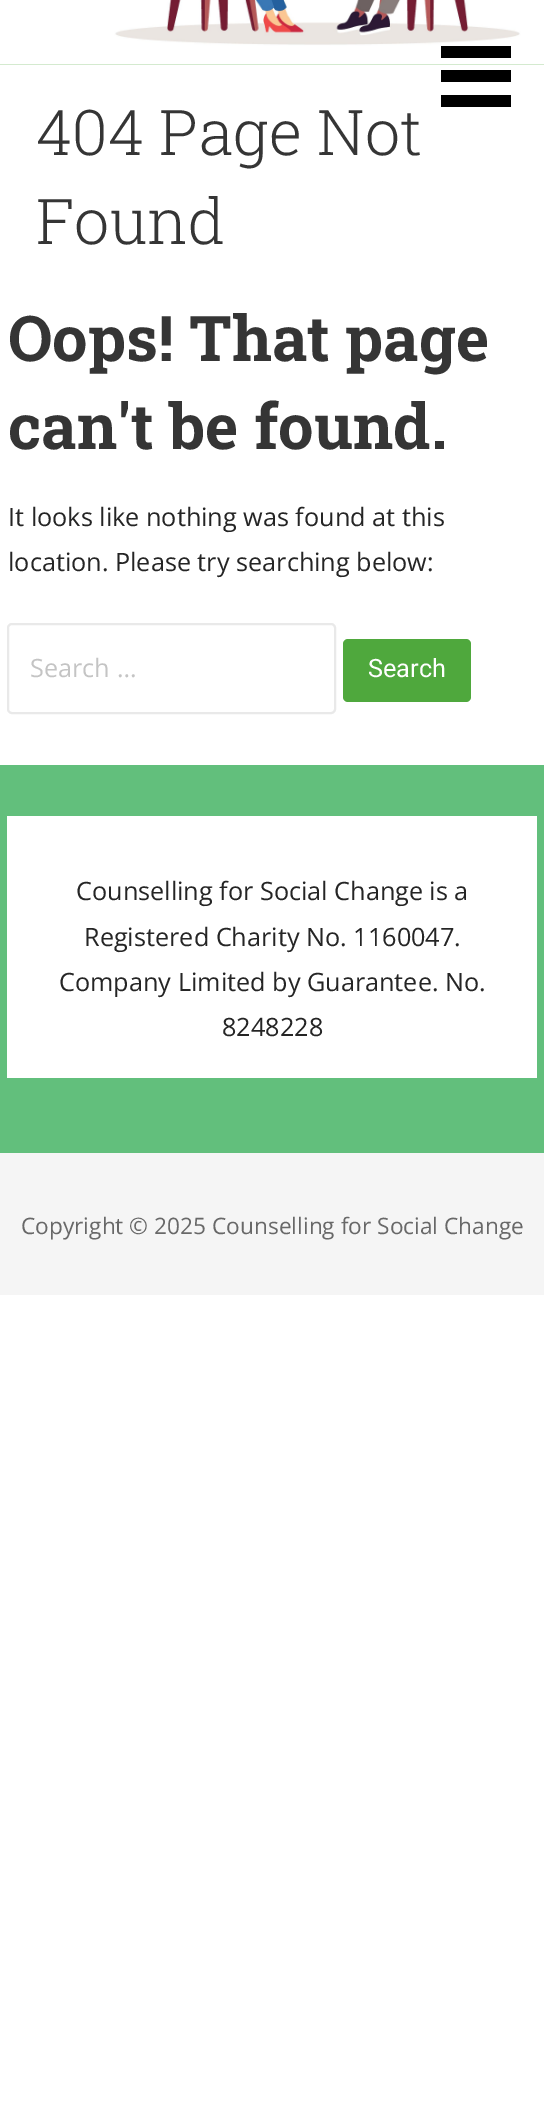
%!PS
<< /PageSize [544 2128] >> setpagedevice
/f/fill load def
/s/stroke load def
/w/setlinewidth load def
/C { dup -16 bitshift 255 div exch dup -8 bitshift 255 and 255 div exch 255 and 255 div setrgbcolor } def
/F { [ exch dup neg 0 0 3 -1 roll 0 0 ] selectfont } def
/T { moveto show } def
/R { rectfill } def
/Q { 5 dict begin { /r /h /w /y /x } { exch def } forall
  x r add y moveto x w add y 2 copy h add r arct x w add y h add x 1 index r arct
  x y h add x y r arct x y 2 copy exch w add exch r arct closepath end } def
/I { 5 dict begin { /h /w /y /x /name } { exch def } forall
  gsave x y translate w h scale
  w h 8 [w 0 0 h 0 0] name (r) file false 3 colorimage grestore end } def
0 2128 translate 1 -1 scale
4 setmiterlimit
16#FFFFFF C
0 0 544 2128 R
(1.rgb) 0 0 544 65 I
16#000000 C
441 46 70 12 R
441 70 70 12 R
441 95 70 12 R
/RobotoSlab-Light 63 F
16#353535 C
(404 Page Not) 36 155 T
(Found) 36 244 T
/RobotoSlab-Bold 63 F
(Oops! That page) 8 361 T
(can't be found.) 8 449 T
/OpenSans-Regular 25.25 F
16#252525 C
(It looks like nothing was found at this) 8 526 T
(location. Please try searching below:) 8 571 T
16#E9E9E9 C
2 w
8 624 327 89 4 Q s
16#C4C4C4 C
(Search …) 30 677 T
16#4FA83D C
343 639 128 63 5 Q f
/Roboto-Regular 25.25 F
16#FFFFFF C
(Search) 368 677 T
16#62BF7C C
0 765 544 388 R
16#FFFFFF C
7 816 530 262 R
/OpenSans-Regular 25.25 F
16#252525 C
(Counselling for Social Change is a) 76 900 T
(Registered Charity No. 1160047.) 84 946 T
(Company Limited by Guarantee. No.) 59 991 T
(8248228) 222 1036 T
16#F5F5F5 C
0 1153 544 142 R
/OpenSans-Regular 22.7 F
16#686868 C
(Copyright © 2025 Counselling for Social Change) 21 1234 T
showpage
